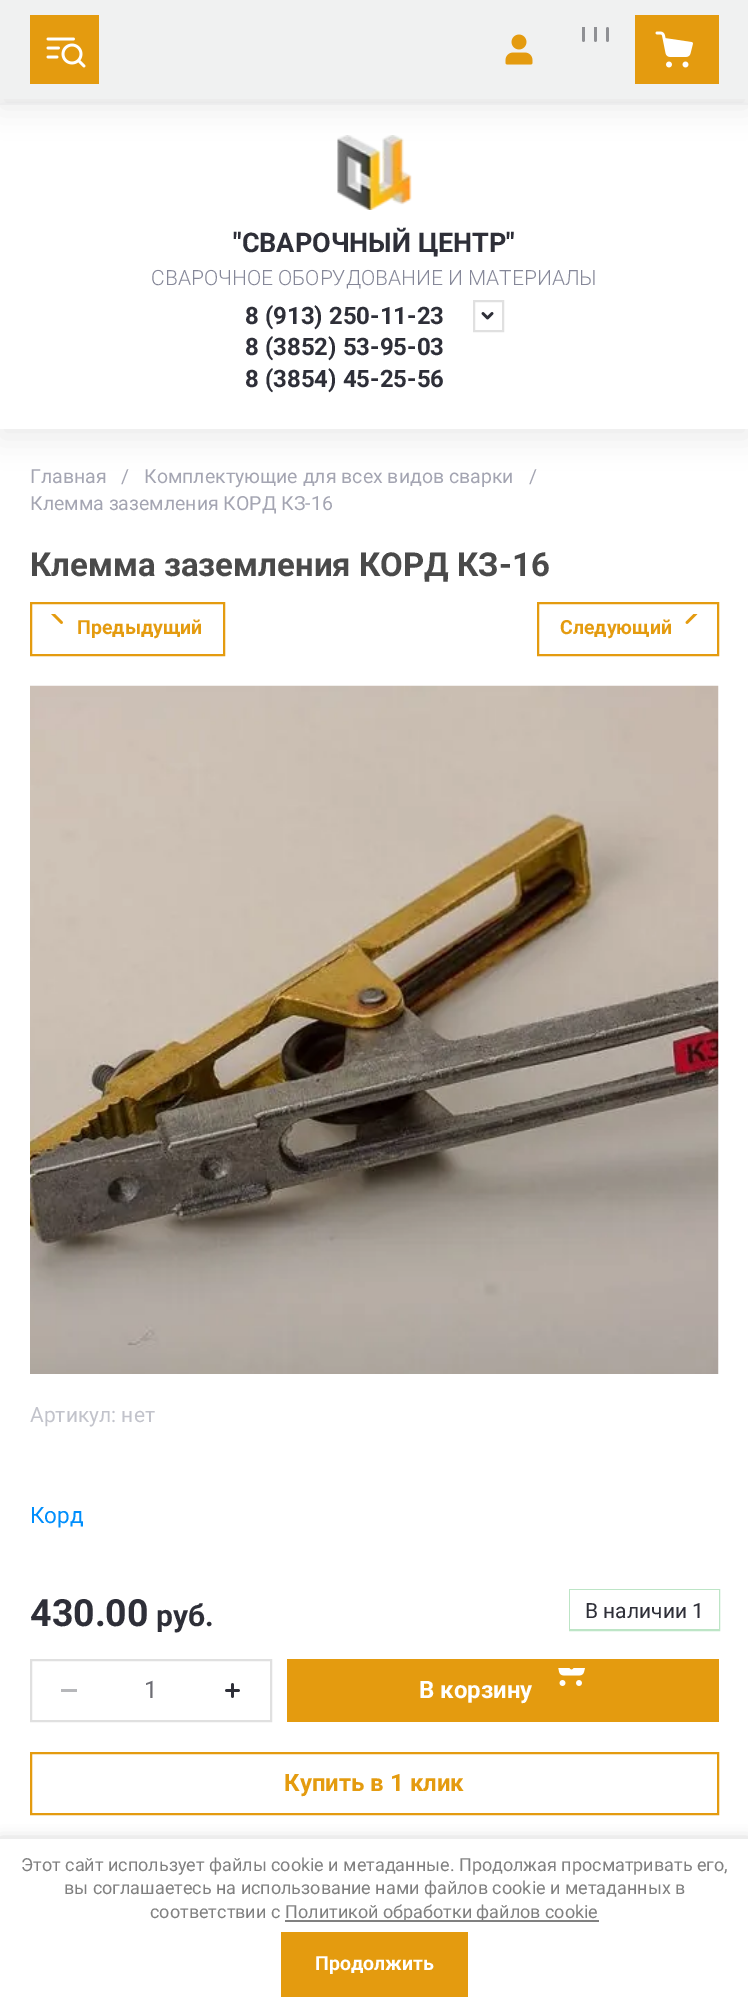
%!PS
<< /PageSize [748 2011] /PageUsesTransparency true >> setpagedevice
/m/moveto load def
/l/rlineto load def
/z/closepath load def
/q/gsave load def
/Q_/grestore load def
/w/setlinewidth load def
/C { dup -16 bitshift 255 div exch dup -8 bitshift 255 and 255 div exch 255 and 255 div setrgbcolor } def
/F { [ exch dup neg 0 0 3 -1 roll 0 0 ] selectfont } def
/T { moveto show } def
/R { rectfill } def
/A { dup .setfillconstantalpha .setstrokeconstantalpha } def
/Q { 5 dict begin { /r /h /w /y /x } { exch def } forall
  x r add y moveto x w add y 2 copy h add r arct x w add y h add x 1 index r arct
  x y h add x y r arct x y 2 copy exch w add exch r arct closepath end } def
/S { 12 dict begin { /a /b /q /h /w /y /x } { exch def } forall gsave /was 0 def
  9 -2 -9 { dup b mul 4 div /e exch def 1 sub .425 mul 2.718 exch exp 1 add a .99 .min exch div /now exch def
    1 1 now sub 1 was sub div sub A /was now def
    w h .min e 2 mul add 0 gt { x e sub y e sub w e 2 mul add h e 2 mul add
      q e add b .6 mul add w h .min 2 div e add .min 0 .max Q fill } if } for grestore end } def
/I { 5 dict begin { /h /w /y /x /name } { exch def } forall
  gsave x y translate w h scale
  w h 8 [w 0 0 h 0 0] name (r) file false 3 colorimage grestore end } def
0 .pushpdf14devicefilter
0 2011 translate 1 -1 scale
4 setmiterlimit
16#FFFFFF C
0 0 748 2011 R
q
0 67 m 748 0 l 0 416 l -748 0 l z 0 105 m 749 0 l 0 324 l -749 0 l z eoclip newpath
16#2E2F38 C
0 113 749 324 0 15 .1 S
Q_
(5.rgb) 337 135 75 75 I
16#2E2F38 C
0 8 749 99 0 15 .1 S
16#F0F1F1 C
0 0 748 99 R
16#E49B0F C
30 15 69 69 R
(1.rgb) 46 37 40 31 I
(2.rgb) 505 34 28 31 I
(3.rgb) 582 27 27 15 I
635 15 84 69 R
(4.rgb) 655 31 38 37 I
/Roboto-Bold 27 F
16#2E2F38 C
("СВАРОЧНЫЙ ЦЕНТР") 233 252 T
/Roboto-Light 21 F
16#858798 C
(СВАРОЧНОЕ ОБОРУДОВАНИЕ И МАТЕРИАЛЫ) 151 285 T
/Roboto-Bold 24 F
16#2E2F38 C
(8 \(913\) 250-11-23) 245 324 T
(8 \(3852\) 53-95-03) 245 355 T
(8 \(3854\) 45-25-56) 245 387 T
16#E0E0E0 C
2 w
474 301 29 30 rectstroke
(6.rgb) 481 312 13 8 I
/Roboto-Regular 19.5 F
16#A4A5B2 C
(Главная) 30 483 T
(/) 121 483 T
(Комплектующие для всех видов сварки) 144 483 T
(/) 529 483 T
(Клемма заземления КОРД КЗ-16) 30 510 T
/Roboto-Bold 33 F
16#4A4A4A C
(Клемма заземления КОРД КЗ-16) 30 576 T
16#E49B0F C
31 603 193 52 rectstroke
(7.rgb) 51 614 12 10 I
/Roboto-Bold 19.5 F
(Предыдущий) 77 634 T
538 603 180 52 rectstroke
(Следующий) 560 634 T
(8.rgb) 685 614 13 10 I
(9.rgb) 30 685 689 689 I
/Roboto-Regular 21 F
16#C2C3CB C
(Артикул: нет) 30 1422 T
/Roboto-Regular 22.5 F
16#008EFC C
(Корд) 30 1523 T
/Roboto-Bold 37.5 F
16#2E2F38 C
(430.00) 30 1626 T
/Roboto-Bold 30 F
(руб.) 156 1626 T
16#BDE5C6 C
570 1590 149 40 rectstroke
16#FFFFFF C
570 1590 149 39 R
/Roboto-Regular 21 F
16#2E2F38 C
(В наличии 1) 585 1618 T
16#E0E0E0 C
31 1660 240 61 rectstroke
16#B6B7BA C
61 1689 16 3 R
/Roboto-Regular 24 F
16#6D6D74 C
(1) 144 1698 T
(10.rgb) 225 1683 15 15 I
16#E49B0F C
287 1659 432 63 R
(11.rgb) 558 1668 27 18 I
/Roboto-Bold 24 F
16#FFFFFF C
(В корзину) 419 1698 T
16#E49B0F C
31 1753 687 61 rectstroke
(Купить в 1 клик) 284 1791 T
16#000000 C
0 1841 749 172 0 7.5 .23 S
16#FFFFFF C
0 1839 748 172 R
/Roboto-Regular 18 F
16#808080 C
(Этот сайт использует файлы cookie и метаданные. Продолжая просматривать его,) 21 1871 T
(вы соглашаетесь на использование нами файлов cookie и метаданных в) 64 1894 T
(соответствии с) 150 1918 T
285 1920 314 2 R
(Политикой обработки файлов cookie) 285 1918 T
16#E49B0F C
281 1932 187 65 R
/Roboto-Bold 19.5 F
16#FFFFFF C
(Продолжить) 315 1970 T
.poppdf14devicefilter showpage
